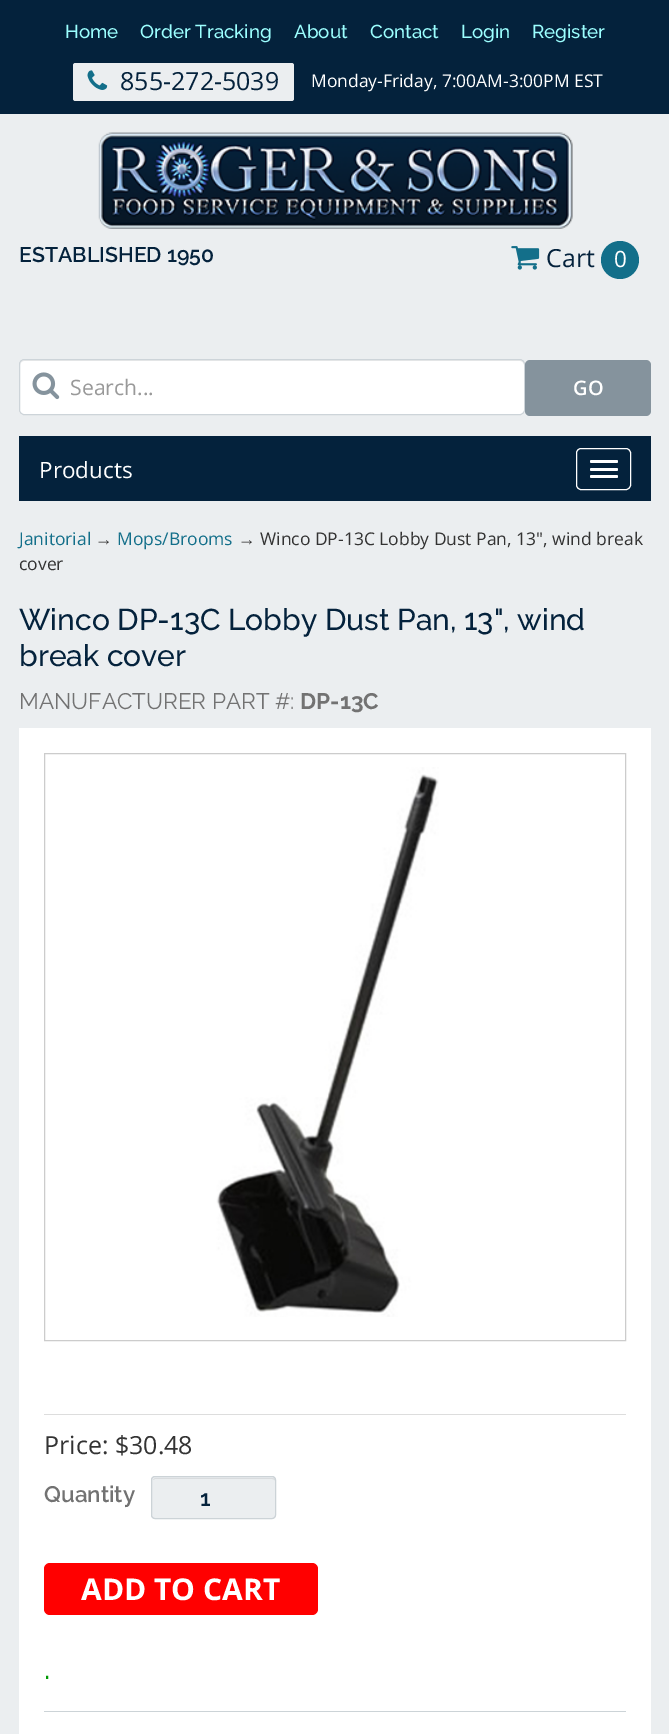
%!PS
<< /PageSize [669 1734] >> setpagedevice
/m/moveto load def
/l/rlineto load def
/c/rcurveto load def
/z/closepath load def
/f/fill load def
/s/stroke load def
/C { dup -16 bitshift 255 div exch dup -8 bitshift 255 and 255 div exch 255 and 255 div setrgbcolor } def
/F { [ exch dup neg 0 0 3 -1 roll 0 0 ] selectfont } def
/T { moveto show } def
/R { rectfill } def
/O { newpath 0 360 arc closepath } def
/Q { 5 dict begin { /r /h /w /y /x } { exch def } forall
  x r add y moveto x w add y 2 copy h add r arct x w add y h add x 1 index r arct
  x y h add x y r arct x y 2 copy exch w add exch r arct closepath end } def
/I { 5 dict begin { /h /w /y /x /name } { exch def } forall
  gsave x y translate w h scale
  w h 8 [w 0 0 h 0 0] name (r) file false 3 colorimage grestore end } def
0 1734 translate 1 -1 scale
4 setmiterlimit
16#EBEEF0 C
0 0 669 1734 R
16#04223C C
0 0 669 114 R
/Raleway-Medium 18.75 F
16#9CFFFF C
(Home) 65 38 T
(Order Tracking) 140 38 T
(About) 294 38 T
(Contact) 370 38 T
(Login) 461 38 T
(Register) 532 38 T
16#EBEEF0 C
73 63 221 38 2.5 Q f
(1.rgb) 87 70 21 20 I
/OpenSans-Regular 25 F
16#04223C C
(855-272-5039) 120 90 T
/OpenSans-Regular 17.5 F
16#FFFFFF C
(Monday-Friday, 7:00AM-3:00PM EST) 311 87 T
(2.rgb) 98 132 475 97 I
/Raleway-SemiBold 21.25 F
16#04223C C
(ESTABLISHED 1950) 19 262 T
(3.rgb) 511 246 29 24 I
/OpenSans-Regular 25 F
(Cart) 546 267 T
16#136F8A C
620 260 19 O f
/OpenSans-Regular 22.5 F
16#FFFFFF C
(0) 614 267 T
19 359 506 56 5 Q f
16#ECECEC C
24 361 m 496 0 l 2 0 4 2 4 4 c 0 -3 -1 -5 -4 -5 c -496 0 l -3 0 -4 2 -4 5 c 0 -2 2 -4 4 -4 c z f
16#CDD4D9 C
19.5 359.5 505 55 4.5 Q s
(4.rgb) 32 372 28 28 I
/OpenSans-Regular 21.25 F
16#999999 C
(Search...) 70 395 T
16#85939D C
525 360 126 56 5 Q f
/OpenSans-SemiBold 20 F
16#FFFFFF C
(GO) 573 395 T
16#04223C C
19 436 632 65 R
/OpenSans-Regular 22.5 F
16#FFFFFF C
(Products) 39 478 T
576.5 448.5 54 41 4.5 Q s
590 460 28 3 1.5 Q f
590 468 28 3 1.5 Q f
590 475 28 3 1.5 Q f
/OpenSans-Regular 17.5 F
16#136F8A C
(Janitorial) 19 545 T
/LiberationSans-Regular 17.5 F
16#333333 C
(→) 95 545 T
/OpenSans-Regular 17.5 F
16#136F8A C
(Mops/Brooms) 117 545 T
/LiberationSans-Regular 17.5 F
16#333333 C
(→) 238 545 T
/OpenSans-Regular 17.5 F
(Winco DP-13C Lobby Dust Pan, 13", wind break) 260 545 T
(cover) 19 570 T
/Raleway-Medium 30 F
16#04223C C
(Winco DP-13C Lobby Dust Pan, 13", wind) 19 630 T
(break cover) 19 666 T
/Raleway-Regular 22.5 F
16#727272 C
(MANUFACTURER PART #:) 19 709 T
/Raleway-Bold 22.5 F
(DP-13C) 300 709 T
16#FFFFFF C
19 728 632 1006 R
16#CCCCCC C
44.5 753.5 581 587 rectstroke
(5.rgb) 216 767 223 550 I
16#DDDDDD C
44 1414 582 1 R
/OpenSans-Regular 25 F
16#333333 C
(Price: $30.48) 44 1454 T
/Raleway-SemiBold 22.5 F
16#727272 C
(Quantity) 44 1502 T
16#EBEEF0 C
151 1476 125 43 4 Q f
16#D9DCDE C
155 1479 m 117 0 l 2 0 3 1 3 2 c 0 -1 l 0 -1 -1 -2 -3 -2 c -116 0 l -2 0 -2 1 -3 2 c z f
16#CCD3D7 C
151.5 1476.5 124 42 3.5 Q s
16#04223C C
(1) 200 1506 T
16#FF0000 C
44 1563 274 52 6 Q f
/OpenSans-Bold 30 F
16#FFFFFF C
(ADD TO CART) 81 1600 T
/Raleway-Medium 30 F
16#009A04 C
(.) 44 1679 T
16#CCD3D7 C
44 1711 582 1 R
showpage
